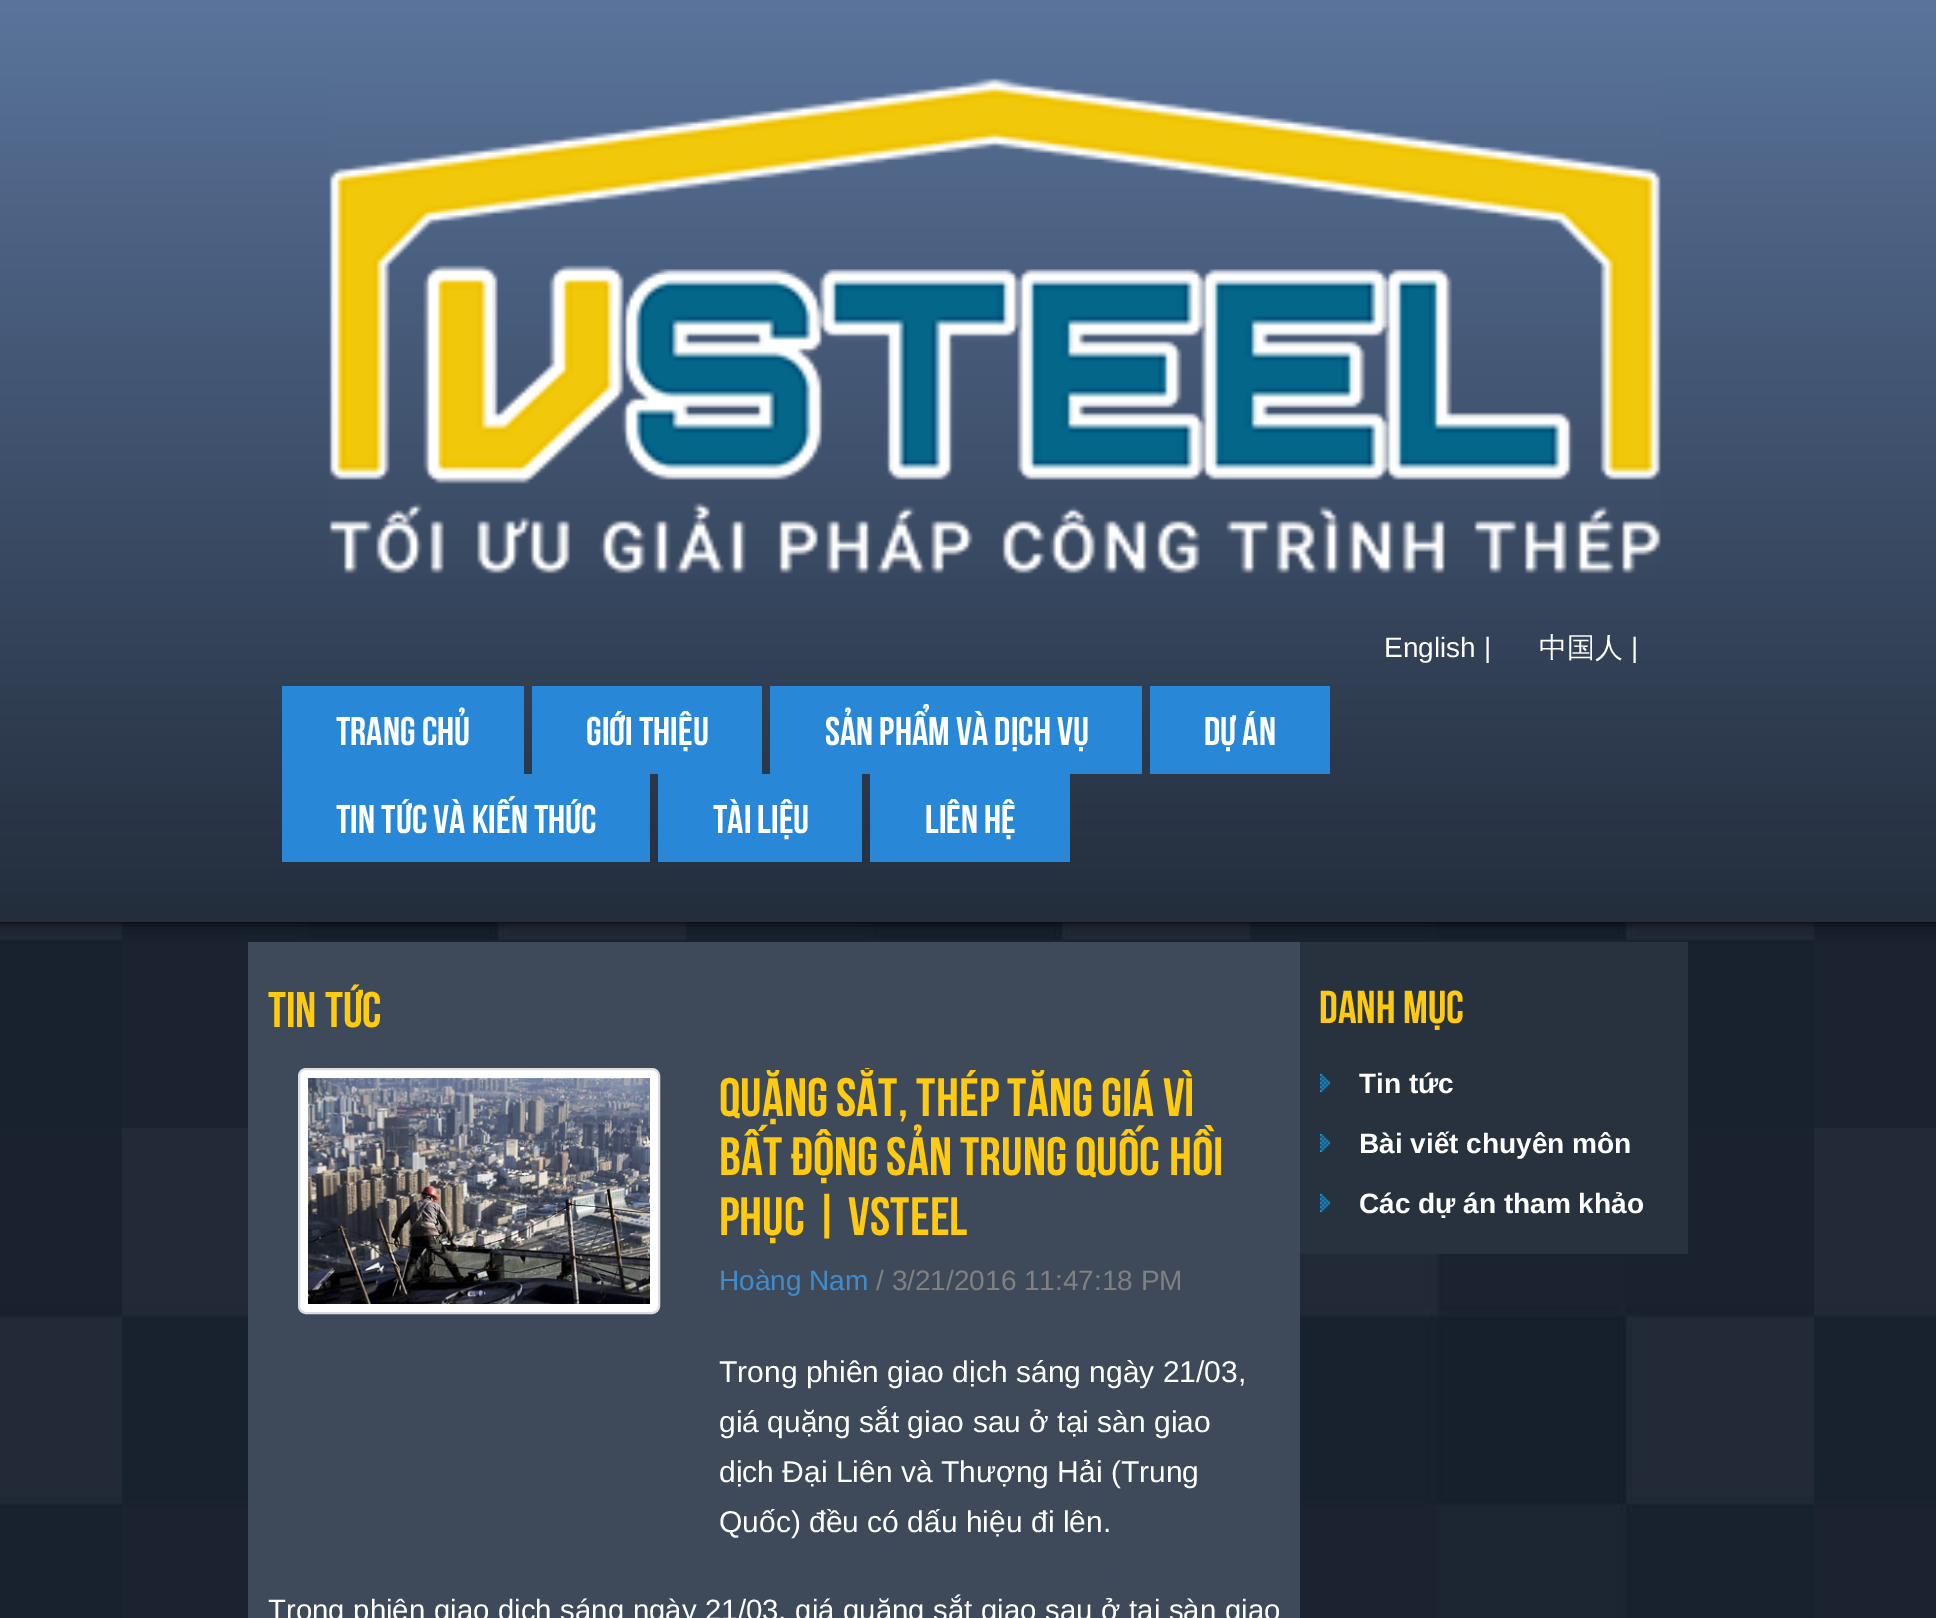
%!PS
<< /PageSize [1936 1618] /PageUsesTransparency true >> setpagedevice
/m/moveto load def
/l/rlineto load def
/z/closepath load def
/f/fill load def
/s/stroke load def
/q/gsave load def
/Q_/grestore load def
/w/setlinewidth load def
/C { dup -16 bitshift 255 div exch dup -8 bitshift 255 and 255 div exch 255 and 255 div setrgbcolor } def
/F { [ exch dup neg 0 0 3 -1 roll 0 0 ] selectfont } def
/T { moveto show } def
/R { rectfill } def
/A { dup .setfillconstantalpha .setstrokeconstantalpha } def
/Q { 5 dict begin { /r /h /w /y /x } { exch def } forall
  x r add y moveto x w add y 2 copy h add r arct x w add y h add x 1 index r arct
  x y h add x y r arct x y 2 copy exch w add exch r arct closepath end } def
/S { 12 dict begin { /a /b /q /h /w /y /x } { exch def } forall gsave /was 0 def
  9 -2 -9 { dup b mul 4 div /e exch def 1 sub .425 mul 2.718 exch exp 1 add a .99 .min exch div /now exch def
    1 1 now sub 1 was sub div sub A /was now def
    w h .min e 2 mul add 0 gt { x e sub y e sub w e 2 mul add h e 2 mul add
      q e add b .6 mul add w h .min 2 div e add .min 0 .max Q fill } if } for grestore end } def
/I { 5 dict begin { /h /w /y /x /name } { exch def } forall
  gsave x y translate w h scale
  w h 8 [w 0 0 h 0 0] name (r) file false 3 colorimage grestore end } def
0 .pushpdf14devicefilter
0 1618 translate 1 -1 scale
4 setmiterlimit
16#FFFFFF C
0 0 1936 1618 R
(1.rgb) 0 922 1936 696 I
16#000000 C
0 0 1936 922 0 6 1 S
q 0 0 m 1936 0 l 0 922 l -1936 0 l z clip newpath
<< /ShadingType 2 /ColorSpace /DeviceRGB /Coords [968 0 968 922] /Extend [true true] /Function << /FunctionType 2 /Domain [0 1] /C0 [.353 .455 .608] /C1 [.137 .176 .235] /N 1 >> >> shfill Q_
(2.rgb) 329 78 1332 496 I
/LiberationSans-Regular 28 F
16#FFFFFF C
(English |) 1384 657 T
/WenQuanYiZenHei-Medium 28 F
(中国人) 1539 657 T
/LiberationSans-Regular 28 F
(|) 1631 657 T
16#2888D7 C
282 686 242 88 R
/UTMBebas-Regular 40 F
16#FFFFFF C
(TRANG CHỦ) 336 745 T
16#2888D7 C
532 686 230 88 R
16#FFFFFF C
(GIỚI THIỆU) 586 745 T
16#2888D7 C
770 686 372 88 R
16#FFFFFF C
(SẢN PHẨM VÀ DỊCH VỤ) 825 745 T
16#2888D7 C
1150 686 180 88 R
16#FFFFFF C
(DỰ ÁN) 1204 745 T
16#2888D7 C
282 774 368 88 R
16#FFFFFF C
(TIN TỨC VÀ KIẾN THỨC) 336 833 T
16#2888D7 C
658 774 204 88 R
16#FFFFFF C
(TÀI LIỆU) 713 833 T
16#2888D7 C
870 774 200 88 R
16#FFFFFF C
(LIÊN HỆ) 925 833 T
16#3E4A5A C
248 942 1052 676 R
/UTMBebas-Regular 50 F
16#FFCA12 C
(TIN TỨC) 268 1027 T
16#FFFFFF C
299 1069 360 244 7 Q q f Q_
16#DDDDDD C
2 w
s
(3.rgb) 308 1078 342 226 I
q
720 1068 530 498 rectclip
/UTMBebas-Regular 54 F
16#FFCA12 C
(QUẶNG SẮT, THÉP TĂNG GIÁ VÌ) 719 1116 T
Q_
/UTMBebas-Regular 54 F
16#FFCA12 C
(BẤT ĐỘNG SẢN TRUNG QUỐC HỒI) 719 1175 T
(PHỤC | VSTEEL) 719 1235 T
/LiberationSans-Regular 28 F
16#428BCA C
(Hoàng Nam) 719 1290 T
16#808080 C
(/ 3/21/2016 11:47:18 PM) 876 1290 T
/LiberationSans-Regular 30 F
16#FFFFFF C
(Trong phiên giao dịch sáng ngày 21/03,) 719 1382 T
(giá quặng sắt giao sau ở tại sàn giao) 719 1432 T
(dịch Đại Liên và Thượng Hải \(Trung) 719 1482 T
(Quốc\) đều có dấu hiệu đi lên.) 719 1532 T
/LiberationSans-Regular 29.35 F
268 1620 m .5 0 32 (Trong phiên giao dịch sáng ngày 21/03, giá quặng sắt giao sau ở tại sàn giao) widthshow
16#28323F C
1300 942 388 312 R
/UTMBebas-Regular 46 F
16#FFCA12 C
(DANH MỤC) 1319 1023 T
(4.rgb) 1320 1074 10 18 I
/LiberationSans-Bold 28 F
16#FFFFFF C
(Tin tức) 1359 1093 T
(4.rgb) 1320 1134 10 18 I
(Bài viết chuyên môn) 1359 1153 T
(4.rgb) 1320 1194 10 18 I
(Các dự án tham khảo) 1359 1213 T
.poppdf14devicefilter showpage
